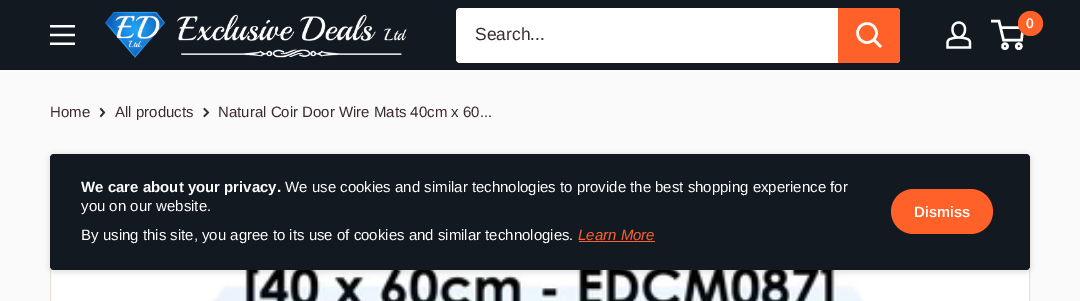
%!PS
<< /PageSize [1080 301] /PageUsesTransparency true >> setpagedevice
/m/moveto load def
/l/rlineto load def
/c/rcurveto load def
/z/closepath load def
/f/fill load def
/s/stroke load def
/q/gsave load def
/Q_/grestore load def
/w/setlinewidth load def
/C { dup -16 bitshift 255 div exch dup -8 bitshift 255 and 255 div exch 255 and 255 div setrgbcolor } def
/F { [ exch dup neg 0 0 3 -1 roll 0 0 ] selectfont } def
/T { moveto show } def
/R { rectfill } def
/A { dup .setfillconstantalpha .setstrokeconstantalpha } def
/O { newpath 0 360 arc closepath } def
/Q { 5 dict begin { /r /h /w /y /x } { exch def } forall
  x r add y moveto x w add y 2 copy h add r arct x w add y h add x 1 index r arct
  x y h add x y r arct x y 2 copy exch w add exch r arct closepath end } def
/S { 12 dict begin { /a /b /q /h /w /y /x } { exch def } forall gsave /was 0 def
  9 -2 -9 { dup b mul 4 div /e exch def 1 sub .425 mul 2.718 exch exp 1 add a .99 .min exch div /now exch def
    1 1 now sub 1 was sub div sub A /was now def
    w h .min e 2 mul add 0 gt { x e sub y e sub w e 2 mul add h e 2 mul add
      q e add b .6 mul add w h .min 2 div e add .min 0 .max Q fill } if } for grestore end } def
/I { 5 dict begin { /h /w /y /x /name } { exch def } forall
  gsave x y translate w h scale
  w h 8 [w 0 0 h 0 0] name (r) file false 3 colorimage grestore end } def
0 .pushpdf14devicefilter
0 301 translate 1 -1 scale
4 setmiterlimit
16#FAFAFA C
0 0 1080 301 R
16#131921 C
0 0 1080 70 R
(1.rgb) 105 11 302 47 I
(2.rgb) 946 21 26 28 I
16#FFFFFF C
2.5 w
1005 46.2 2.5 O s
1018.8 46.2 2.5 O s
1000.5 27.5 m 22.5 0 l -1.5 12.5 l -18 0 l -4.5 -19 l -8 0 l s
16#FF6128 C
1030.5 23.5 12.5 O f
/Arimo-SemiBold 14 F
16#FFFFFF C
(0) 1026 28 T
(3.rgb) 50 25 25 20 I
456 8 444 55 4 Q f
/Arimo-Regular 17.5 F
16#3A2A2F C
(Search...) 475 40 T
16#FF6128 C
838 8 m 58 0 l 2 0 4 2 4 4 c 0 47 l 0 2 -2 4 -4 4 c -58 0 l z f
16#FFFFFF C
2 setlinecap
880 46 m -6 -6 l s
0 setlinecap
867 33 9.5 O s
/Arimo-Regular 15 F
16#3A2A2F C
(Home) 50 117 T
1.7 w
2 setlinecap
101 109 m 3 3.5 l -3 3.5 l s
(All products) 115 117 T
204.5 109 m 3.5 3.5 l -3.5 3.5 l s
(Natural Coir Door Wire Mats 40cm x 60...) 218 117 T
16#FFFFFF C
50.5 155.5 979 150 3.5 Q q f Q_
16#E7E2DE C
1 w
0 setlinecap
s
(4.rgb) 212 270 658 31 I
16#000000 C
49 154 982 119 5 2.5 .1 S
16#131921 C
50 154 980 116 4 Q f
/Arimo-Bold 15 F
16#FFFFFF C
(We care about your privacy.) 81 192 T
/Arimo-Regular 15 F
(We use cookies and similar technologies to provide the best shopping experience for) 285 192 T
(you on our website.) 81 211 T
(By using this site, you agree to its use of cookies and similar technologies.) 81 240 T
/Arimo-Italic 15 F
16#FF6128 C
(Learn More) 578 240 T
579 241 76 1 R
891 189 102 45 22.5 Q f
/Arimo-SemiBold 15 F
16#FFFFFF C
(Dismiss) 914 217 T
.poppdf14devicefilter showpage
